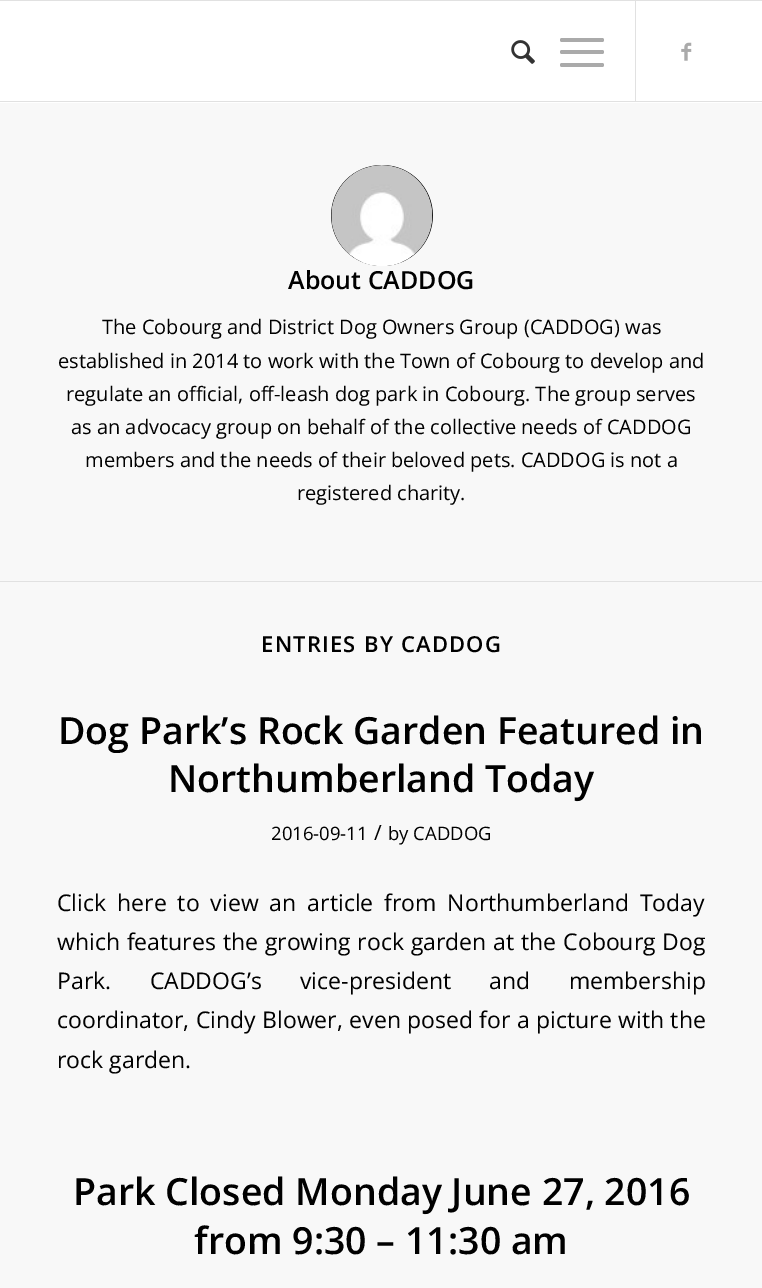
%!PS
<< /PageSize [762 1288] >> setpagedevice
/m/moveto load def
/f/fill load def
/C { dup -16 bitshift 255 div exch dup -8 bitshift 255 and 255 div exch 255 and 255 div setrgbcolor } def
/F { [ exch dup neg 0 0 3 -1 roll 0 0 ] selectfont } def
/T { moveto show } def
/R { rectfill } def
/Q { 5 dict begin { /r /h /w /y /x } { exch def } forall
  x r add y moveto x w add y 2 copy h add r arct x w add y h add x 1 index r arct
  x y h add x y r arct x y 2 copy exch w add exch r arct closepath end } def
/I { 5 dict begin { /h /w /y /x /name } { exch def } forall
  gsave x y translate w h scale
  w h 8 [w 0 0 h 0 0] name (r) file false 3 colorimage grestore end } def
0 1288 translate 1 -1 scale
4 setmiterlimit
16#F8F8F8 C
0 0 762 1288 R
16#E1E1E1 C
0 0 762 1 R
16#FFFFFF C
0 1 762 102 R
16#E1E1E1 C
0 101 762 1 R
635 1 1 100 R
(1.rgb) 511 40 24 24 I
16#AAAAAA C
560 50 44 4 2 Q f
560 38 44 4 2 Q f
560 63 44 4 2 Q f
(2.rgb) 681 42 11 19 I
16#000000 C
331 165 102 101 50.5 Q f
(3.rgb) 331 165 102 101 I
/OpenSans-SemiBold 25 F
(About CADDOG) 288 289 T
/OpenSans-Regular 20 F
(The Cobourg and District Dog Owners Group \(CADDOG\) was) 102 334 T
(established in 2014 to work with the Town of Cobourg to develop and) 58 368 T
(regulate an official, off-leash dog park in Cobourg. The group serves) 66 401 T
(as an advocacy group on behalf of the collective needs of CADDOG) 71 434 T
(members and the needs of their beloved pets. CADDOG is not a) 85 467 T
(registered charity.) 297 500 T
16#E1E1E1 C
0 581 762 1 R
/OpenSans-SemiBold 22 F
16#000000 C
261 652 m 1.25 0 (ENTRIES BY CADDOG) ashow
/OpenSans-SemiBold 37.5 F
(Dog Park’s Rock Garden Featured in) 58 744 T
(Northumberland Today) 168 792 T
/OpenSans-Regular 18.5 F
(2016-09-11) 271 840 T
/OpenSans-Regular 21 F
(/) 374 840 T
/OpenSans-Regular 18.5 F
(by CADDOG) 388 840 T
/OpenSans-Regular 23 F
57 911 m 5 0 32 (Click here to view an article from Northumberland Today) widthshow
57 950 m .9 0 32 (which features the growing rock garden at the Cobourg Dog) widthshow
57 989 m 32.5 0 32 (Park. CADDOG’s vice-president and membership) widthshow
57 1028 m .5 0 32 (coordinator, Cindy Blower, even posed for a picture with the) widthshow
(rock garden.) 57 1068 T
/OpenSans-SemiBold 37.5 F
(Park Closed Monday June 27, 2016) 73 1205 T
(from 9:30 – 11:30 am) 194 1254 T
showpage
